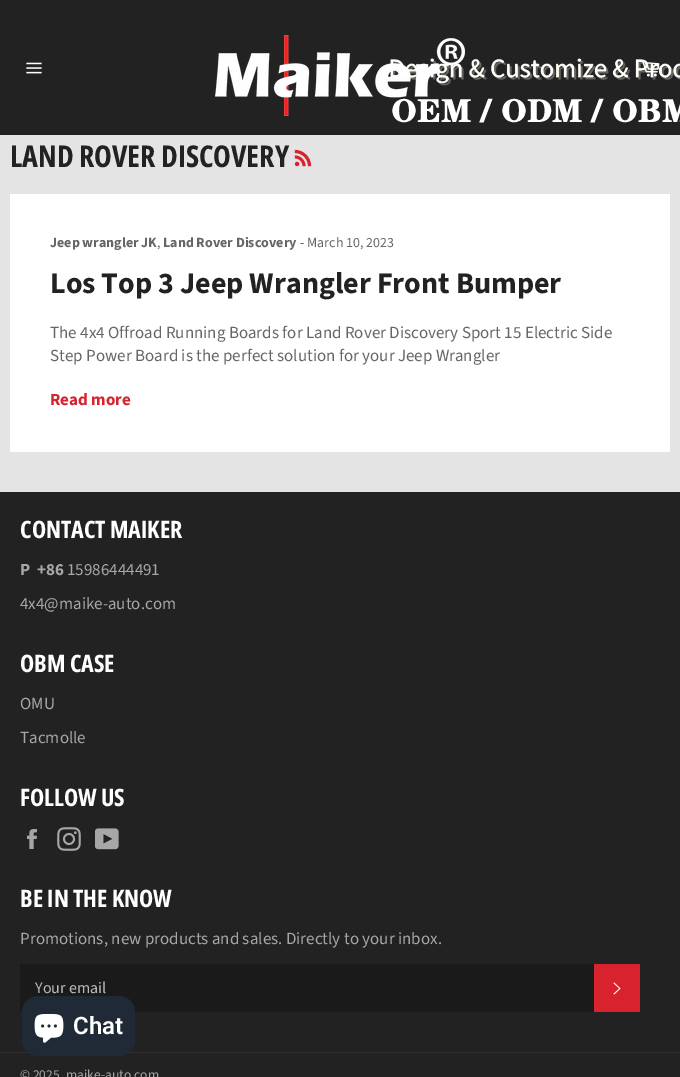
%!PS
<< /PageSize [680 1077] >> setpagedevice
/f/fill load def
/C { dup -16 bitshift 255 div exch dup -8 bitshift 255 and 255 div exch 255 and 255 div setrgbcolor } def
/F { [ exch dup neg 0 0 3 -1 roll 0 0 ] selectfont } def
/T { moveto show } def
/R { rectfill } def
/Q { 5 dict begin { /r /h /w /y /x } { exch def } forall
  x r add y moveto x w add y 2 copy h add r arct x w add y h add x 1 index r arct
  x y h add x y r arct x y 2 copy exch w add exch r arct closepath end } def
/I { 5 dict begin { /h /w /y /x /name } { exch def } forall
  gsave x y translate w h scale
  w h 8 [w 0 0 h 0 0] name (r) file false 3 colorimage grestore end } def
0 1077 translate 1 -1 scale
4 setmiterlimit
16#E4E4E4 C
0 0 680 1077 R
16#222222 C
0 0 680 135 R
(1.rgb) 284 35 396 88 I
(2.rgb) 26 62 16 12 I
(3.rgb) 215 38 250 60 I
(4.rgb) 639 60 21 17 I
/OpenSansCondensed-Bold 30 F
(LAND ROVER DISCOVERY) 10 167 T
(5.rgb) 294 149 18 18 I
16#FFFFFF C
10 194 660 258 R
/SourceSansPro-Bold 14 F
16#666666 C
(Jeep wrangler JK) 50 247 T
/SourceSansPro-Regular 14 F
(,) 157 247 T
/SourceSansPro-Bold 14 F
(Land Rover Discovery) 163 247 T
/SourceSansPro-Regular 14 F
(- March 10, 2023) 300 247 T
/SourceSansPro-Bold 30 F
16#222222 C
(Los Top 3 Jeep Wrangler Front Bumper) 50 293 T
/SourceSansPro-Regular 17 F
16#666666 C
(The 4x4 Offroad Running Boards for Land Rover Discovery Sport 15 Electric Side) 50 338 T
(Step Power Board is the perfect solution for your Jeep Wrangler) 50 361 T
/SourceSansPro-Bold 17 F
16#D8232F C
(Read more) 50 405 T
16#222222 C
0 492 680 585 R
/OpenSansCondensed-Bold 24 F
16#FFFFFF C
(CONTACT MAIKER) 20 538 T
/SourceSansPro-Bold 17 F
16#A7A7A7 C
(P  +86) 20 575 T
/SourceSansPro-Regular 17 F
(15986444491) 67 575 T
(4x4@maike-auto.com) 20 609 T
/OpenSansCondensed-Bold 24 F
16#FFFFFF C
(OBM CASE) 20 672 T
/SourceSansPro-Regular 17 F
16#A7A7A7 C
(OMU) 20 709 T
(Tacmolle) 20 743 T
/OpenSansCondensed-Bold 24 F
16#FFFFFF C
(FOLLOW US) 20 806 T
(6.rgb) 27 829 10 20 I
(7.rgb) 57 827 24 24 I
(8.rgb) 95 828 24 22 I
(BE IN THE KNOW) 20 907 T
/SourceSansPro-Regular 17 F
16#A7A7A7 C
(Promotions, new products and sales. Directly to your inbox.) 20 944 T
16#1A1A1A C
20 964 574 48 R
/SourceSansPro-Regular 16 F
16#BABABA C
(Your email) 35 993 T
16#D8232F C
594 964 46 48 R
(9.rgb) 613 982 8 13 I
16#2F2F2F C
0 1052 680 1 R
/SourceSansPro-Regular 13.5 F
16#A7A7A7 C
(© 2025) 20 1079 T
(maike-auto.com) 66 1079 T
16#202A36 C
22 996 113 60 16 Q f
(10.rgb) 34 1014 30 29 I
/Roboto-SemiBold 24 F
16#FFFFFF C
(Chat) 73 1034 T
showpage
